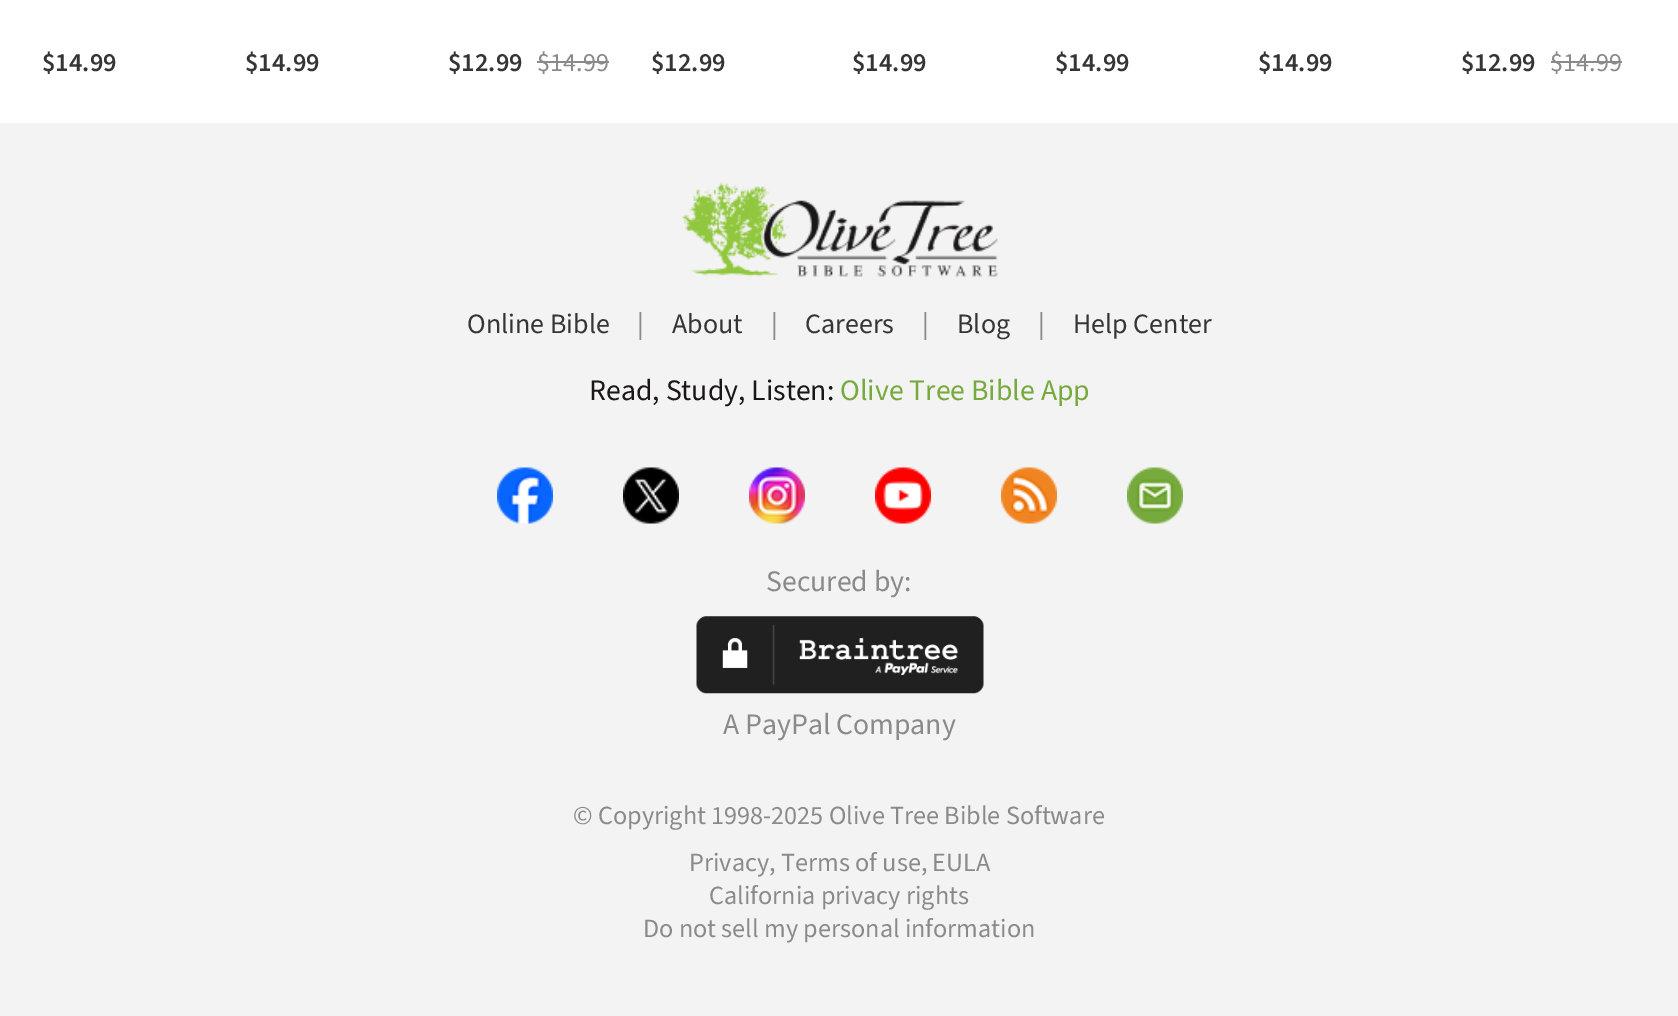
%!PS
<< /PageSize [1678 1016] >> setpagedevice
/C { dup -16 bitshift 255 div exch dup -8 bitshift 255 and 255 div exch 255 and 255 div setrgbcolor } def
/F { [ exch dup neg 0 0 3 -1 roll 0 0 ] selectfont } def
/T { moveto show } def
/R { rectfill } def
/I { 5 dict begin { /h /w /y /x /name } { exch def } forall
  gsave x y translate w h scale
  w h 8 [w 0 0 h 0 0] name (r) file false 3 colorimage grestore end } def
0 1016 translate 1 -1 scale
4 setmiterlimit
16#FFFFFF C
0 0 1678 1016 R
/SourceSans3-SemiBold 26.25 F
16#353535 C
($14.99) 42 71 T
($14.99) 245 71 T
($12.99) 448 71 T
/SourceSans3-Regular 26.25 F
16#8A8A8A C
($14.99) 537 71 T
537 61 72 2 R
/SourceSans3-SemiBold 26.25 F
16#353535 C
($12.99) 651 71 T
($14.99) 852 71 T
($14.99) 1055 71 T
($14.99) 1258 71 T
($12.99) 1461 71 T
/SourceSans3-Regular 26.25 F
16#8A8A8A C
($14.99) 1550 71 T
1551 61 71 2 R
16#F3F3F3 C
0 123 1678 893 R
(1.rgb) 682 181 316 96 I
/SourceSans3-Regular 28 F
16#353535 C
(Online Bible) 467 333 T
16#8A8A8A C
(|) 637 333 T
16#353535 C
(About) 672 333 T
16#8A8A8A C
(|) 771 333 T
16#353535 C
(Careers) 805 333 T
16#8A8A8A C
(|) 922 333 T
16#353535 C
(Blog) 957 333 T
16#8A8A8A C
(|) 1038 333 T
16#353535 C
(Help Center) 1073 333 T
/SourceSans3-Regular 29.75 F
16#1A1718 C
(Read, Study, Listen:) 589 400 T
16#77AA3C C
(Olive Tree Bible App) 840 400 T
(2.rgb) 497 467 56 57 I
(3.rgb) 623 467 56 57 I
(4.rgb) 749 467 56 57 I
(5.rgb) 875 467 56 57 I
(6.rgb) 1001 467 56 57 I
(7.rgb) 1127 467 56 57 I
16#8A8A8A C
(Secured by:) 766 591 T
(8.rgb) 696 616 288 78 I
(A PayPal Company) 723 734 T
/SourceSans3-Regular 26.25 F
(© Copyright 1998-2025 Olive Tree Bible Software) 573 824 T
(Privacy, Terms of use, EULA) 689 871 T
(California privacy rights) 709 904 T
(Do not sell my personal information) 643 937 T
showpage
